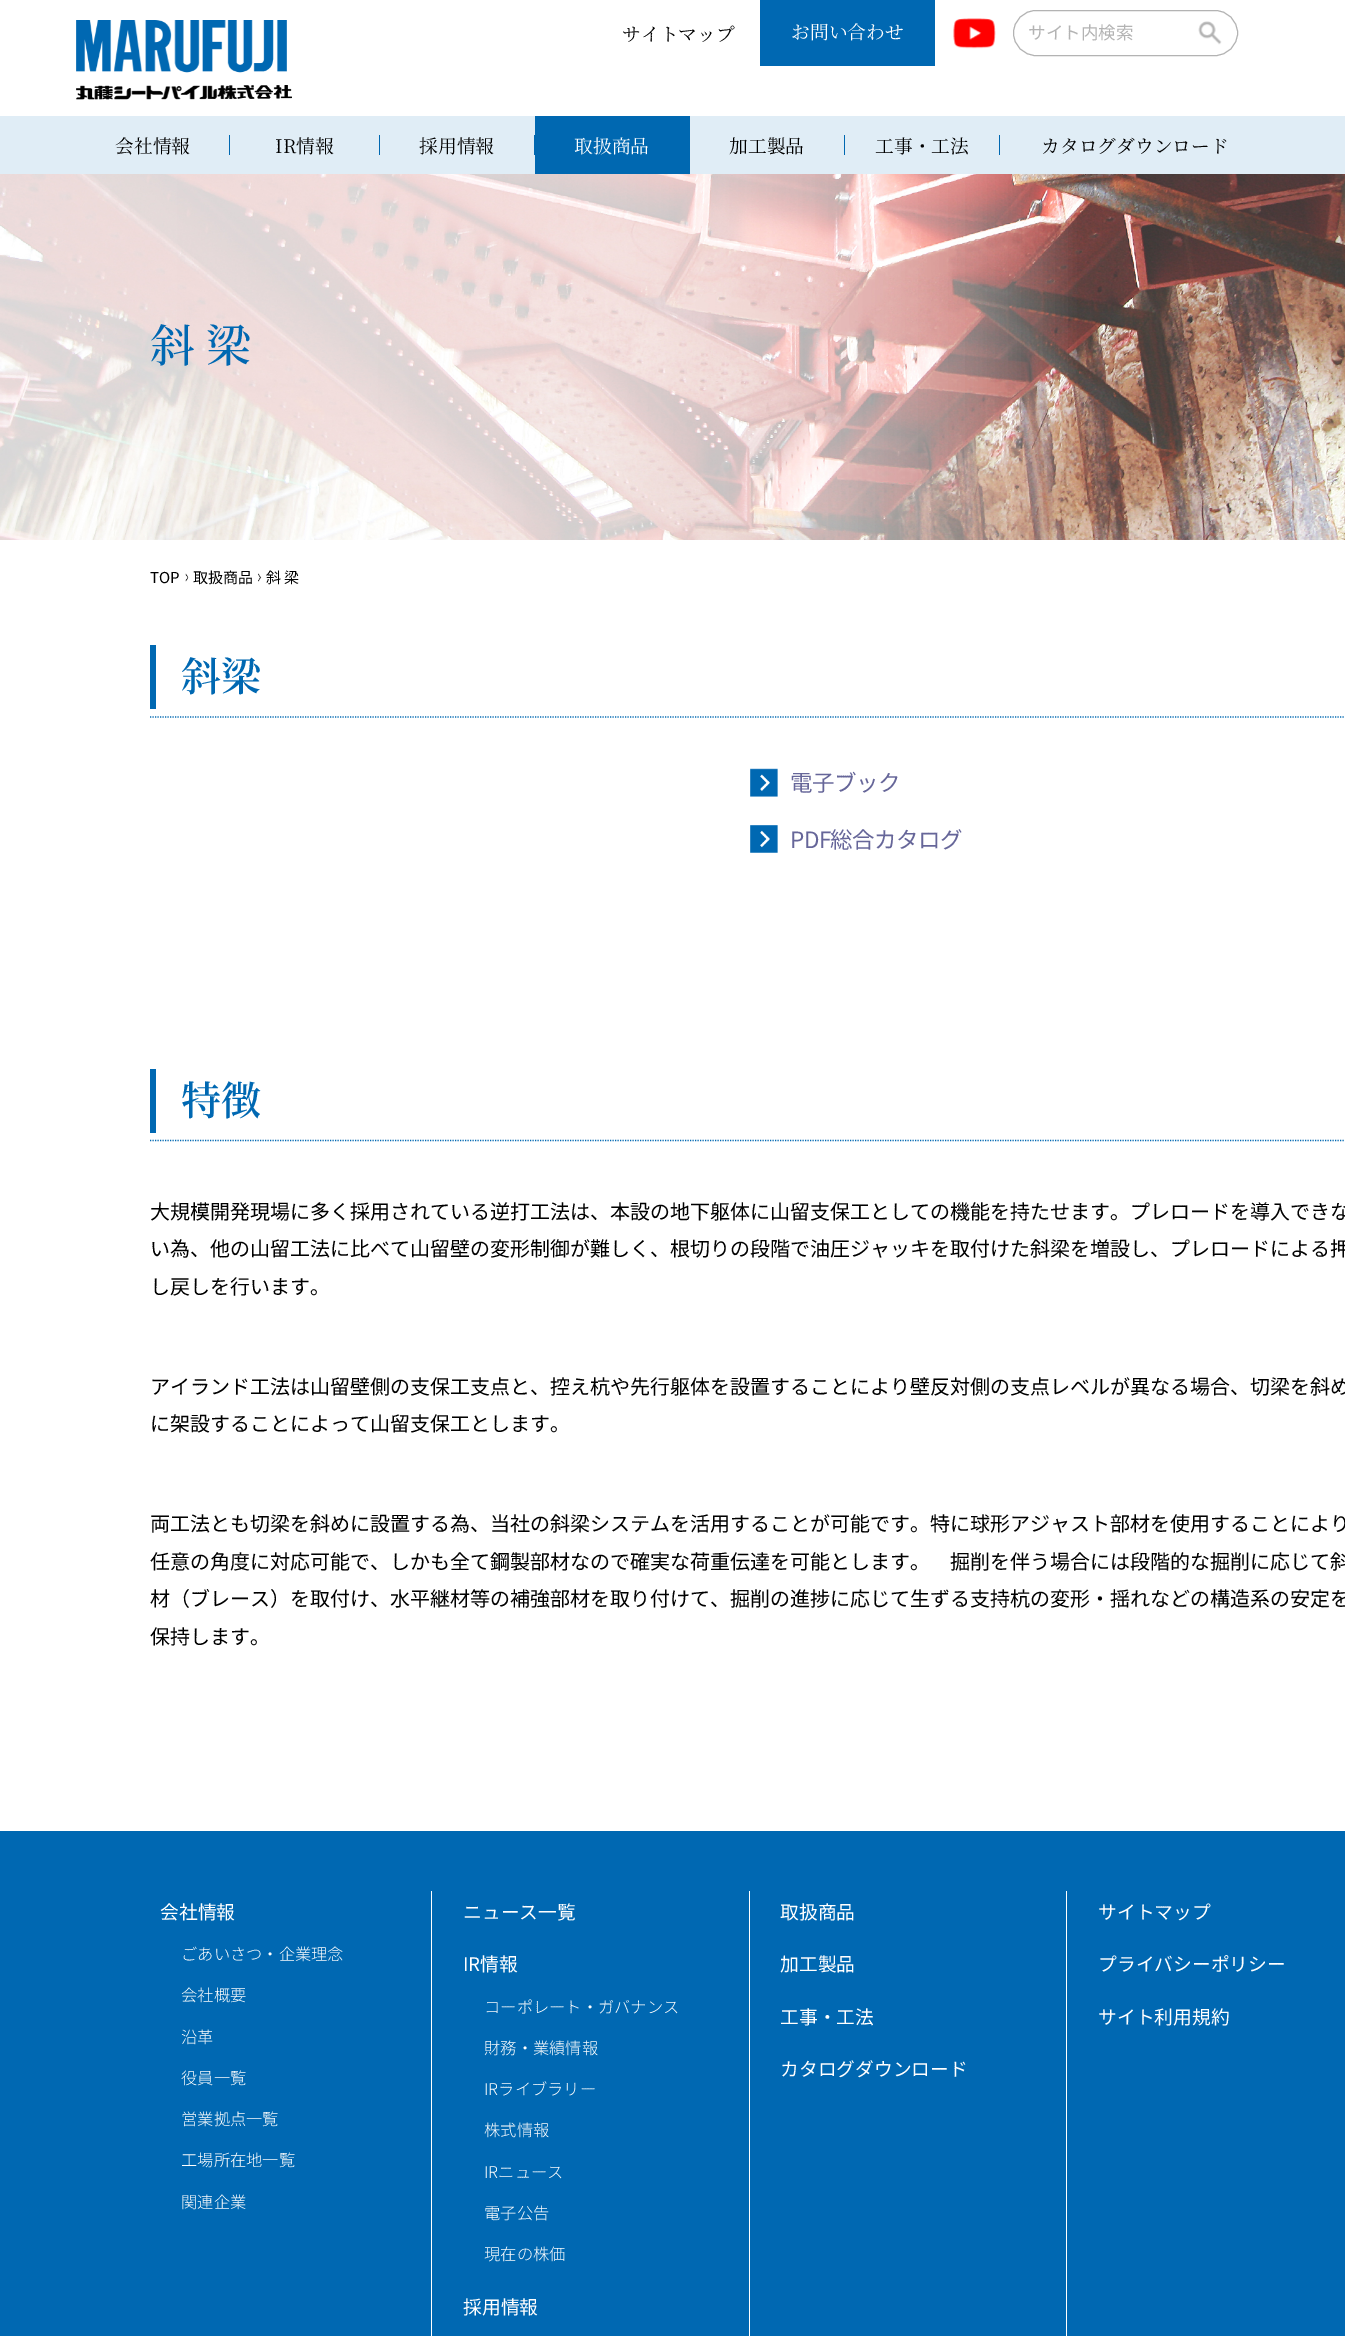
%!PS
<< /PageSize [1345 2336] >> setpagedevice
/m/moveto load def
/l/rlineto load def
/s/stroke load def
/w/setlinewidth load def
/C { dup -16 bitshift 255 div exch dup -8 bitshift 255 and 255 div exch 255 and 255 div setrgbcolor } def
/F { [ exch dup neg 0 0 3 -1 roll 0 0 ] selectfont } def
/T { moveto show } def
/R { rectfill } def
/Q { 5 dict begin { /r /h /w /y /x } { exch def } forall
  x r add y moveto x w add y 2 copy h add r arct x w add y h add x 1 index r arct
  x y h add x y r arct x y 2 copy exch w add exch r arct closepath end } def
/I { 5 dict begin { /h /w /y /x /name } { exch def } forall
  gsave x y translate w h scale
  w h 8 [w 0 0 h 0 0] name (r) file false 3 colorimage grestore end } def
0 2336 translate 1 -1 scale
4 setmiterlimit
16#FFFFFF C
0 0 1345 2336 R
(1.rgb) 76 20 216 80 I
/NotoSerifJP-Regular 18.75 F
16#000000 C
(サイトマップ) 622 41 T
16#0068B2 C
760 0 175 66 R
16#FFFFFF C
(お問い合わせ) 791 39 T
(2.rgb) 953 18 43 31 I
16#B3B3B3 C
1013.5 10.5 224 45 22.5 Q s
/NotoSansJP-Regular 17.5 F
(サイト内検索) 1028 39 T
(3.rgb) 1198 21 24 24 I
16#E0EDF6 C
0 116 1345 58 R
/NotoSerifJP-Regular 18.75 F
16#000000 C
(会社情報) 115 153 T
16#0068B1 C
229 135 1 20 R
16#000000 C
(IR情報) 275 153 T
16#0068B1 C
379 135 1 20 R
16#000000 C
(採用情報) 419 153 T
16#0068B1 C
534 135 1 20 R
535 116 155 58 R
16#FFFFFF C
(取扱商品) 574 153 T
16#000000 C
(加工製品) 729 153 T
16#0068B1 C
844 135 1 20 R
16#000000 C
(工事・工法) 875 153 T
16#0068B1 C
999 135 1 20 R
16#000000 C
(カタログダウンロード) 1041 153 T
(4.rgb) 0 174 1345 366 I
/NotoSerifJP-Medium 45 F
16#0068B2 C
(斜 梁) 150 362 T
(5.rgb) 185 573 4 9 I
/NotoSansJP-Regular 15 F
16#000000 C
(TOP) 150 583 T
(6.rgb) 258 573 4 9 I
(取扱商品) 193 583 T
(斜 梁) 266 583 T
16#0068B2 C
1.2 w
[1.25 1.25] 0 setdash
150 717 m 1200 0 l s
150 645 6 64 R
/NotoSerifJP-SemiBold 40 F
(斜梁) 181 691 T
(7.rgb) 750 768 28 29 I
/NotoSansJP-Regular 22.5 F
16#666699 C
790 791 m -.6 0 (電子ブック) ashow
(8.rgb) 750 825 28 28 I
790 848 m -.6 0 (PDF総合カタログ) ashow
16#0068B2 C
150 1140.5 m 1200 0 l s
150 1069 6 64 R
/NotoSerifJP-SemiBold 40 F
(特徴) 181 1115 T
/NotoSansJP-Regular 20 F
16#000000 C
(大規模開発現場に多く採用されている逆打工法は、本設の地下躯体に山留支保工としての機能を持たせます。プレロードを導入できな) 150 1219 T
(い為、他の山留工法に比べて山留壁の変形制御が難しく、根切りの段階で油圧ジャッキを取付けた斜梁を増設し、プレロードによる押) 150 1256 T
(し戻しを行います。) 150 1294 T
(アイランド工法は山留壁側の支保工支点と、控え杭や先行躯体を設置することにより壁反対側の支点レベルが異なる場合、切梁を斜め) 150 1394 T
(に架設することによって山留支保工とします。) 150 1431 T
(両工法とも切梁を斜めに設置する為、当社の斜梁システムを活用することが可能です。特に球形アジャスト部材を使用することにより) 150 1531 T
(任意の角度に対応可能で、しかも全て鋼製部材なので確実な荷重伝達を可能とします。　掘削を伴う場合には段階的な掘削に応じて斜) 150 1569 T
(材（ブレース）を取付け、水平継材等の補強部材を取り付けて、掘削の進捗に応じて生ずる支持杭の変形・揺れなどの構造系の安定を) 150 1606 T
(保持します。) 150 1644 T
16#0068B2 C
0 1831 1345 505 R
16#FFFFFF C
431 1891 1 445 R
/NotoSansJP-Regular 18.75 F
(会社情報) 160 1919 T
/NotoSansJP-Light 16.25 F
(ごあいさつ・企業理念) 181 1960 T
(会社概要) 181 2001 T
(沿革) 181 2043 T
(役員一覧) 181 2084 T
(営業拠点一覧) 181 2125 T
(工場所在地一覧) 181 2166 T
(関連企業) 181 2208 T
749 1891 1 445 R
/NotoSansJP-Regular 18.75 F
(ニュース一覧) 463 1919 T
(IR情報) 463 1971 T
/NotoSansJP-Light 16.25 F
(コーポレート・ガバナンス) 484 2013 T
(財務・業績情報) 484 2054 T
(IRライブラリー) 484 2095 T
(株式情報) 484 2136 T
(IRニュース) 484 2178 T
(電子公告) 484 2219 T
(現在の株価) 484 2260 T
/NotoSansJP-Regular 18.75 F
(採用情報) 463 2314 T
1066 1891 1 445 R
(取扱商品) 780 1919 T
(加工製品) 780 1971 T
(工事・工法) 780 2024 T
(カタログダウンロード) 780 2076 T
(サイトマップ) 1098 1919 T
(プライバシーポリシー) 1098 1971 T
(サイト利用規約) 1098 2024 T
showpage
